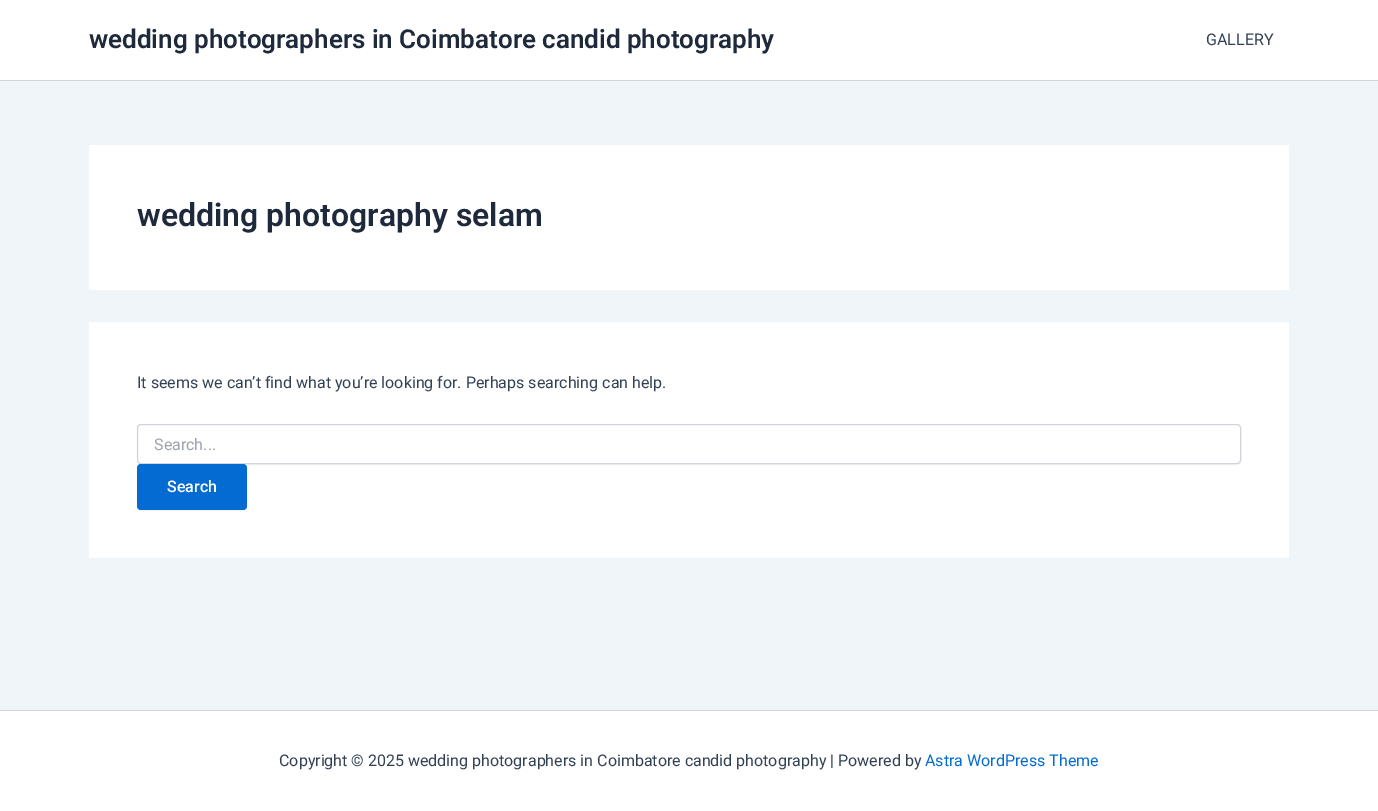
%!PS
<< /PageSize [1378 811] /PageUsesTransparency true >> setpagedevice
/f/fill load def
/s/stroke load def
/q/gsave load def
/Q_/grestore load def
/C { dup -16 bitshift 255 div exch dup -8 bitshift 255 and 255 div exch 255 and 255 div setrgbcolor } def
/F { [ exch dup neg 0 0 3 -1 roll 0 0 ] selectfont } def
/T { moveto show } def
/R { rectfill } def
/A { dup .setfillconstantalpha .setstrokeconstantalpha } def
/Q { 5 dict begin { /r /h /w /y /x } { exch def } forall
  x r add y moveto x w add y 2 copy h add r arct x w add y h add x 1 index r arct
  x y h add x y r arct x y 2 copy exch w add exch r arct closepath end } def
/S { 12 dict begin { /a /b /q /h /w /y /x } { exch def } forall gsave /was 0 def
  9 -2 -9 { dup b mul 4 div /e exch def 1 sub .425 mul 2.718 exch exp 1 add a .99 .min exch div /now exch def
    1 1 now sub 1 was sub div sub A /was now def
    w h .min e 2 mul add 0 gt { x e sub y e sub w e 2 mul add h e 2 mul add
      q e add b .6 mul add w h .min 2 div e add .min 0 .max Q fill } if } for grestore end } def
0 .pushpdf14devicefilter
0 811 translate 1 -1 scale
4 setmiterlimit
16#F0F5FA C
0 0 1378 811 R
16#FFFFFF C
0 0 1378 80 R
16#D1D5DB C
0 80 1378 1 R
/Roboto-SemiBold 26 F
16#1E293B C
(wedding photographers in Coimbatore candid photography) 89 48 T
/Roboto-Regular 16 F
16#334155 C
(GALLERY) 1206 45 T
16#FFFFFF C
89 145 1200 145 R
/Roboto-SemiBold 32 F
16#1E293B C
(wedding photography selam) 137 226 T
16#FFFFFF C
89 322 1200 236 R
/Roboto-Regular 16 F
16#334155 C
(It seems we can’t find what you’re looking for. Perhaps searching can help.) 137 388 T
16#000000 C
137 425 1104 40 4 1 .05 S
16#FFFFFF C
137.5 424.5 1103 39 3.5 Q q f Q_
16#D1D5DB C
s
16#9CA3AF C
(Search...) 154 450 T
16#000000 C
137 465 110 46 4 1 .05 S
16#046BD2 C
137 464 110 46 4 Q f
/Roboto-Medium 16 F
16#FFFFFF C
(Search) 167 492 T
0 711 1378 100 R
16#D1D5DB C
0 710 1378 1 R
/Roboto-Regular 16 F
16#334155 C
(Copyright © 2025 wedding photographers in Coimbatore candid photography | Powered by) 279 766 T
16#046BD2 C
(Astra WordPress Theme) 925 766 T
.poppdf14devicefilter showpage
